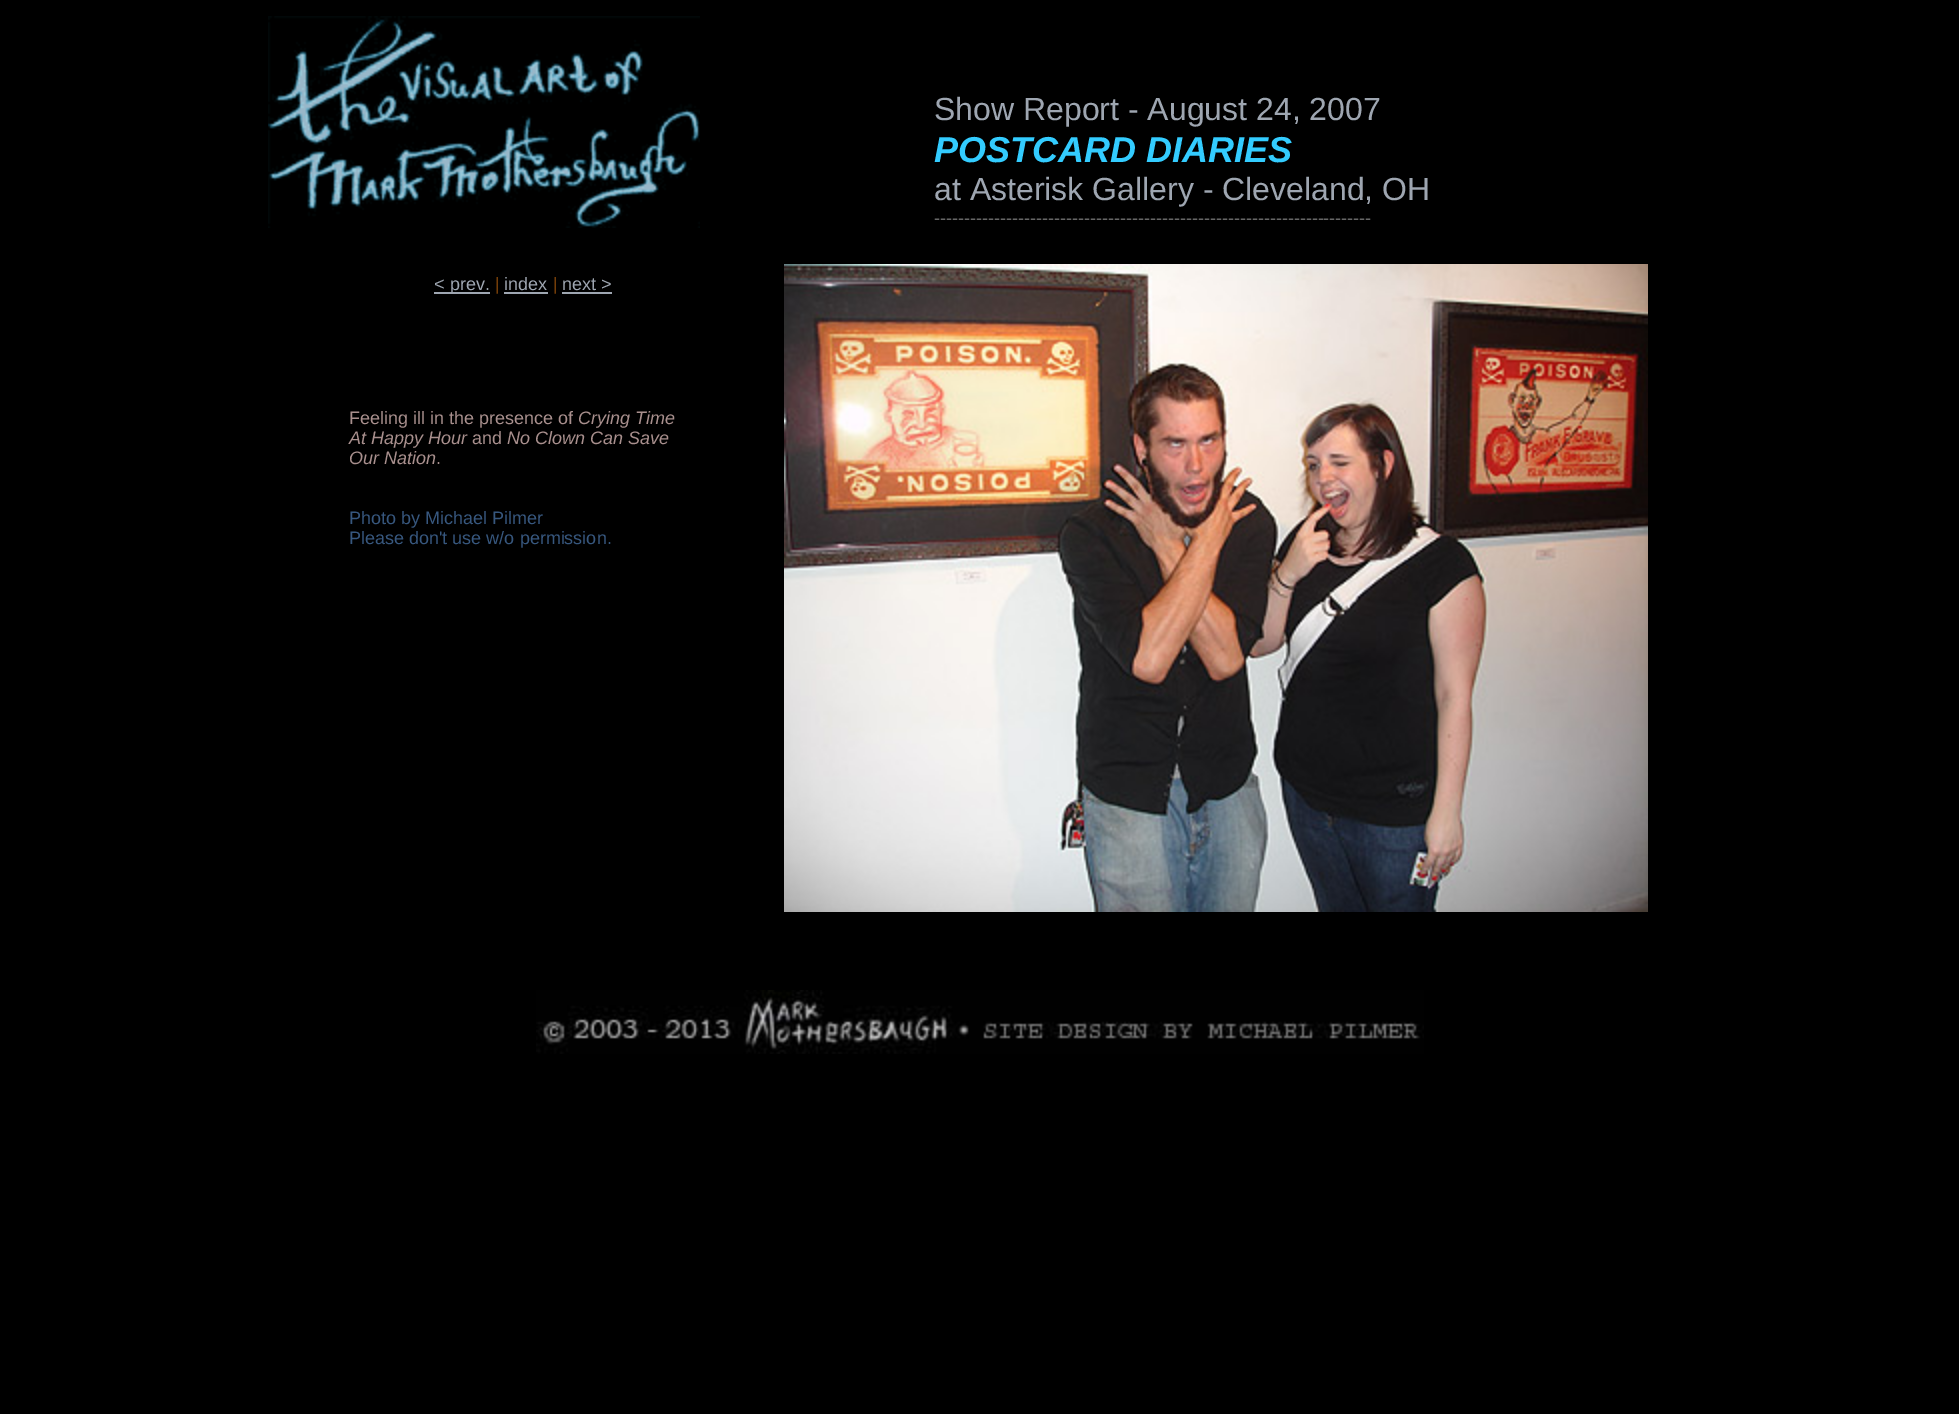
%!PS
<< /PageSize [1959 1414] >> setpagedevice
/C { dup -16 bitshift 255 div exch dup -8 bitshift 255 and 255 div exch 255 and 255 div setrgbcolor } def
/F { [ exch dup neg 0 0 3 -1 roll 0 0 ] selectfont } def
/T { moveto show } def
/R { rectfill } def
/I { 5 dict begin { /h /w /y /x /name } { exch def } forall
  gsave x y translate w h scale
  w h 8 [w 0 0 h 0 0] name (r) file false 3 colorimage grestore end } def
0 1414 translate 1 -1 scale
4 setmiterlimit
16#000000 C
0 0 1959 1414 R
(1.rgb) 268 16 432 212 I
/LiberationSans-Regular 32 F
16#9EA6B1 C
(Show Report - August 24, 2007) 934 120 T
/LiberationSans-BoldItalic 36 F
16#33CCFF C
(POSTCARD DIARIES) 934 162 T
/LiberationSans-Regular 32 F
16#9EA6B1 C
(at Asterisk Gallery - Cleveland, OH) 934 200 T
/LiberationSans-Regular 18 F
16#666666 C
(-------------------------------------------------------------------------) 934 224 T
16#9EA6B1 C
434 292 56 2 R
(< prev.) 434 290 T
16#733D08 C
(|) 495 290 T
16#9EA6B1 C
(index) 504 290 T
504 292 44 2 R
16#733D08 C
(|) 553 290 T
16#9EA6B1 C
(next >) 562 290 T
562 292 50 2 R
16#A88F8D C
(Feeling ill in the presence of) 349 424 T
/LiberationSans-Italic 18 F
(Crying Time) 578 424 T
(At Happy Hour) 349 444 T
/LiberationSans-Regular 18 F
(and) 472 444 T
/LiberationSans-Italic 18 F
(No Clown Can Save) 507 444 T
(Our Nation) 349 464 T
/LiberationSans-Regular 18 F
(.) 436 464 T
16#37577E C
(Photo by Michael Pilmer) 349 524 T
(Please don't use w/o permission.) 349 544 T
(2.rgb) 784 264 864 648 I
(3.rgb) 536 990 888 64 I
showpage
